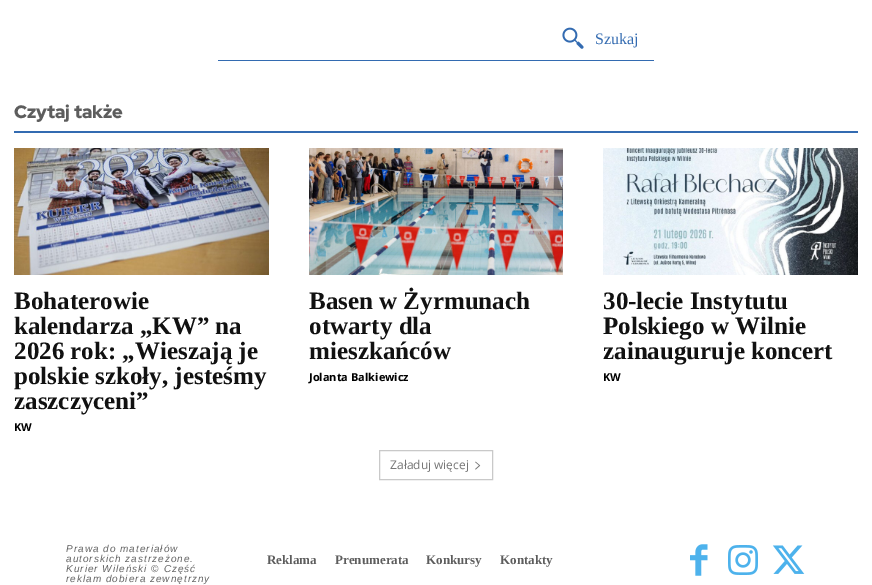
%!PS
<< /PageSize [872 585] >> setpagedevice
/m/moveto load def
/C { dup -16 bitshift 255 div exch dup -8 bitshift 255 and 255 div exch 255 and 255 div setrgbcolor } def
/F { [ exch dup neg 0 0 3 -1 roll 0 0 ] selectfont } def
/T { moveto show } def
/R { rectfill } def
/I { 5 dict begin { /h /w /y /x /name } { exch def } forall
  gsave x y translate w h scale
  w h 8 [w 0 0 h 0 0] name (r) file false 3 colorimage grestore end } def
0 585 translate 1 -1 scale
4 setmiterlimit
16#FFFFFF C
0 0 872 585 R
(1.rgb) 562 27 22 22 I
/LiberationSerif-Regular 16 F
16#336BB1 C
(Szukaj) 595 44 T
218 60 436 1 R
14 131 844 2 R
/RedHatDisplay-Black 18 F
16#5D5D5D C
(Czytaj także) 14 118 T
(2.rgb) 14 148 255 127 I
/LiberationSerif-Bold 25 F
16#111111 C
(Bohaterowie) 14 309 T
(kalendarza „KW” na) 14 334 T
(2026 rok: „Wieszają je) 14 359 T
(polskie szkoły, jesteśmy) 14 384 T
(zaszczyceni”) 14 409 T
/OpenSans-Bold 11 F
16#000000 C
(KW) 14 431 T
(3.rgb) 309 148 254 127 I
/LiberationSerif-Bold 25 F
16#111111 C
(Basen w Żyrmunach) 309 309 T
(otwarty dla) 309 334 T
(mieszkańców) 309 359 T
/OpenSans-Bold 11 F
16#000000 C
(Jolanta Balkiewicz) 309 381 T
(4.rgb) 603 148 255 127 I
/LiberationSerif-Bold 25 F
16#111111 C
(30-lecie Instytutu) 603 309 T
(Polskiego w Wilnie) 603 334 T
(zainauguruje koncert) 603 359 T
/OpenSans-Bold 11 F
16#000000 C
(KW) 603 381 T
16#C9C9C9 C
379.5 450.5 113 29 rectstroke
/OpenSans-Regular 12 F
16#767676 C
(Załaduj więcej) 390 469 T
(5.rgb) 475 461 6 9 I
/LiberationSans-Italic 10 F
16#666666 C
66 552 m 1 0 (Prawa do materiałów) ashow
66 562 m 1 0 (autorskich zastrzeżone.) ashow
66 572 m 1 0 (Kurier Wileński © Część) ashow
66 582 m 1 0 (reklam dobiera zewnętrzny) ashow
/LiberationSerif-Bold 13 F
16#5D5D5D C
(Reklama) 267 564 T
(Prenumerata) 335 564 T
(Konkursy) 426 564 T
(Kontakty) 500 564 T
(6.rgb) 690 544 18 32 I
(7.rgb) 728 545 30 30 I
(8.rgb) 772 545 33 29 I
showpage
